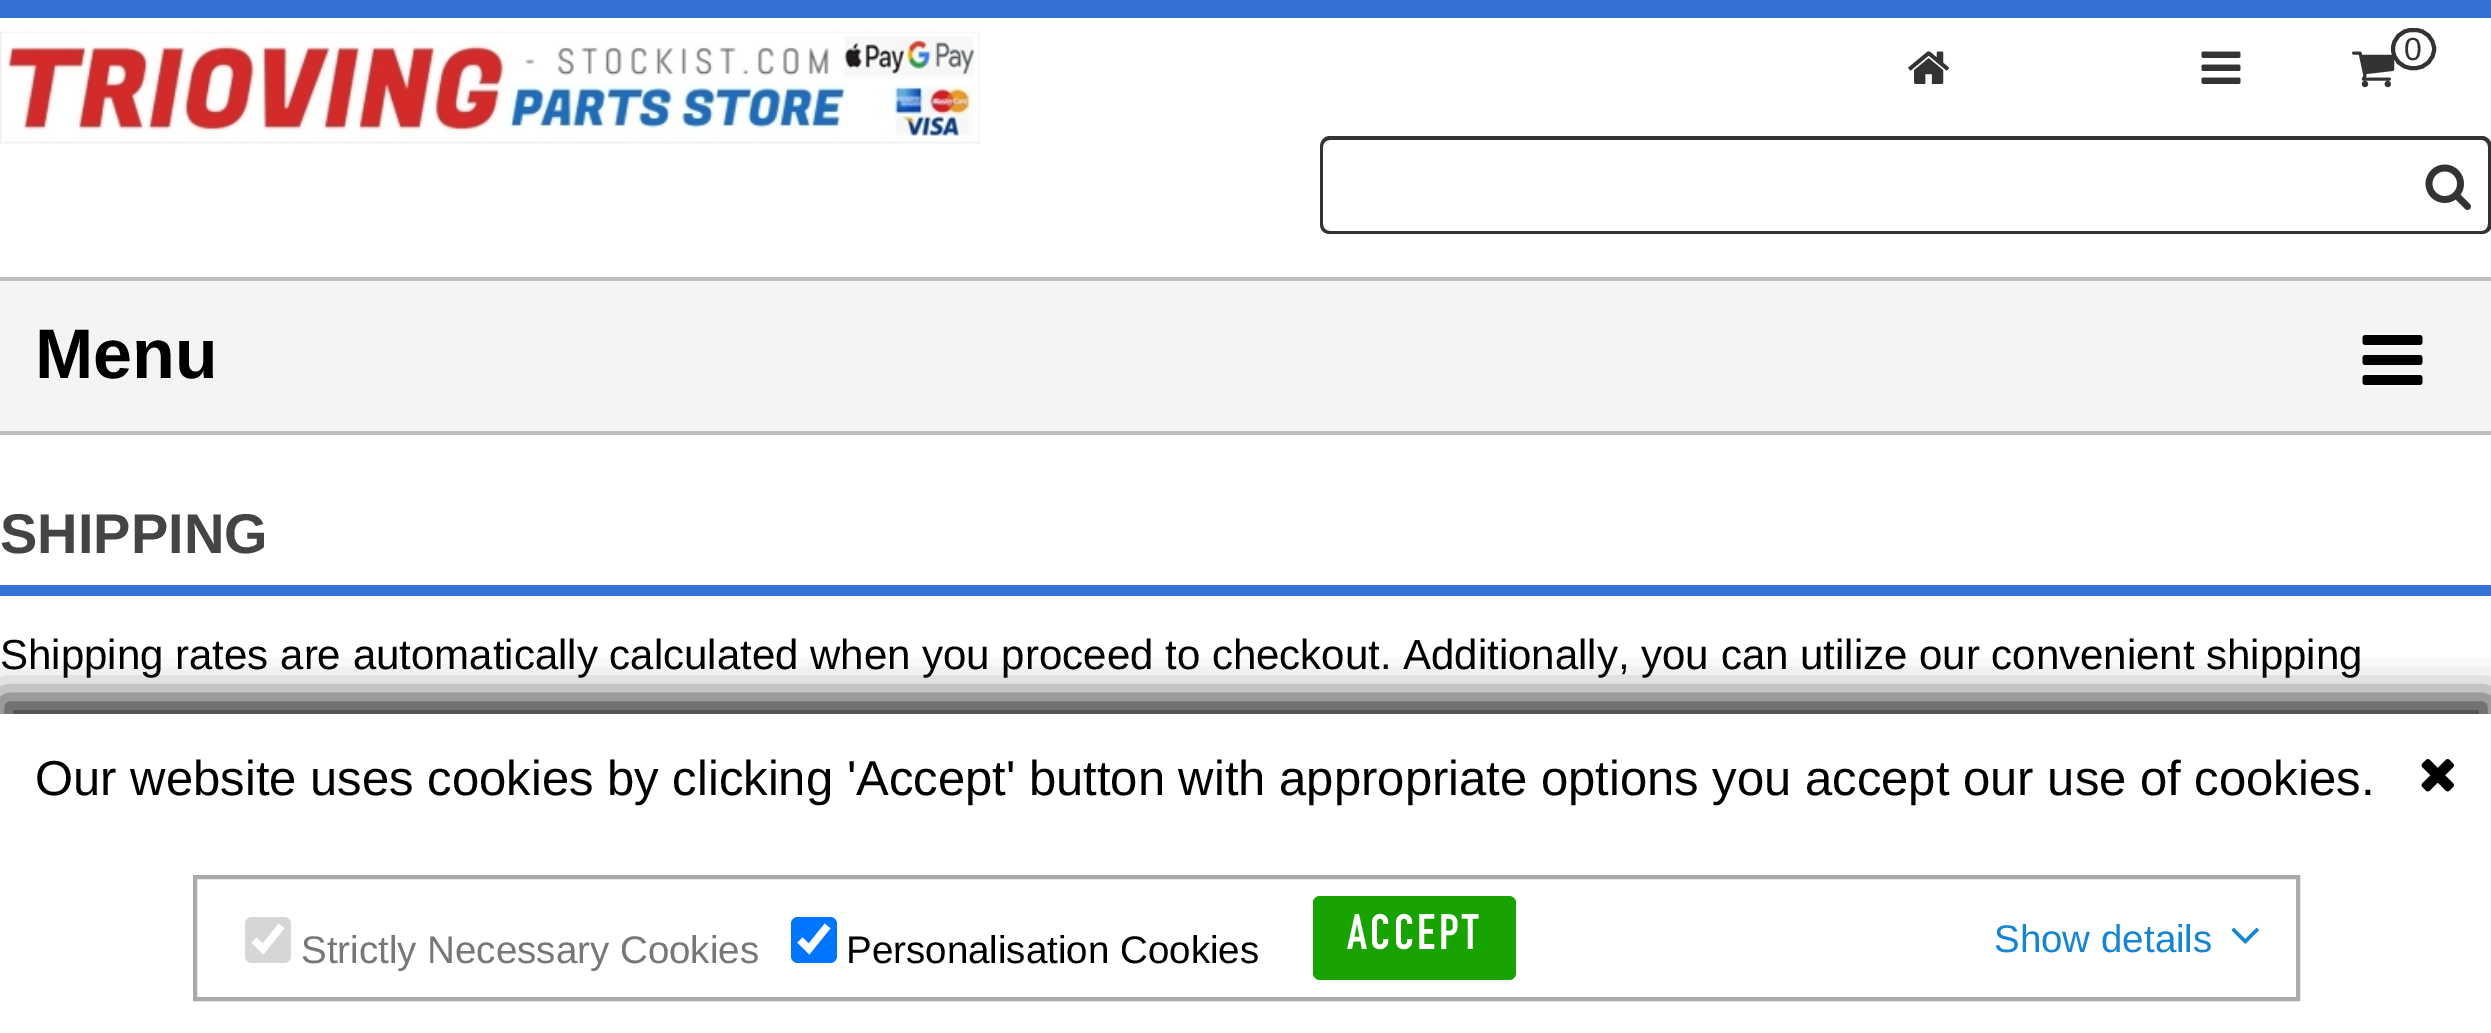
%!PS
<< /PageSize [2491 1033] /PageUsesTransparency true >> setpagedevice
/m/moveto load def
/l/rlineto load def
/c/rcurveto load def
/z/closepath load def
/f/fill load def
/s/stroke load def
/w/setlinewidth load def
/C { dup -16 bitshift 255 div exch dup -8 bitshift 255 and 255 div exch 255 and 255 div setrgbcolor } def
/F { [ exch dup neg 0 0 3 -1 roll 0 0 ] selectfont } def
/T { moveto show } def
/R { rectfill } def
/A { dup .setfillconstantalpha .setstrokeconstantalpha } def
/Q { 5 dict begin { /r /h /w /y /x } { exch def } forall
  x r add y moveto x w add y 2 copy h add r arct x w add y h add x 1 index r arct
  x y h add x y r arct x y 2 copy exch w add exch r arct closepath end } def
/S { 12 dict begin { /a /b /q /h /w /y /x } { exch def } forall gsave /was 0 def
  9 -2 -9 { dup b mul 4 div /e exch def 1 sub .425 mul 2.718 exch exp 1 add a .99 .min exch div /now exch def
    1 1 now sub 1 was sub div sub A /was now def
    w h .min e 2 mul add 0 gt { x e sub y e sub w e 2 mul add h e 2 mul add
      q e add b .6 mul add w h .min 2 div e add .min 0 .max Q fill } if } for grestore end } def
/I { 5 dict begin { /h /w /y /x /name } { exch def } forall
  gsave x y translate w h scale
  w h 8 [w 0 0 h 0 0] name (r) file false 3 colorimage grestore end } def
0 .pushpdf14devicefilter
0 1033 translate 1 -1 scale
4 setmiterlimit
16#FFFFFF C
0 0 2491 1033 R
16#3472D5 C
0 0 2491 18 R
(1.rgb) 1908 51 41 33 I
(2.rgb) 2201 51 40 33 I
(3.rgb) 2352 51 43 37 I
16#333333 C
4 w
2393 30 41 38 19 Q s
/LiberationSans-Regular 32 F
(0) 2404 60 T
(4.rgb) 0 31 980 113 I
1330 136 m 1078 0 l 0 98 l -1078 0 l -6 0 -10 -4 -10 -10 c 0 -77 l 0 -6 4 -11 10 -11 c z 1330 140 m 1078 0 l 0 91 l -1078 0 l -4 0 -7 -3 -7 -7 c 0 -77 l 0 -4 3 -7 7 -7 c z eofill
2408 136 m 74 0 l 5 0 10 5 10 11 c 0 77 l 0 6 -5 10 -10 10 c -74 0 l z 2408 140 m 74 0 l 3 0 6 3 6 7 c 0 77 l 0 4 -3 7 -6 7 c -74 0 l z eofill
(5.rgb) 2425 164 46 46 I
16#F4F4F4 C
0 281 2491 150 R
16#C0C0C0 C
0 277 2491 4 R
0 431 2491 4 R
/LiberationSans-Bold 70 F
16#000000 C
(Menu) 35 378 T
(6.rgb) 2362 335 61 50 I
16#3472D5 C
0 585 2491 11 R
/LiberationSans-Bold 56 F
16#444444 C
(SHIPPING) 0 553 T
/LiberationSans-Regular 42 F
16#000000 C
(Shipping rates are automatically calculated when you proceed to checkout. Additionally, you can utilize our convenient shipping) 0 669 T
16#333333 C
0 697 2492 322 0 17.5 1 S
16#FFFFFF C
0 714 2491 319 R
/LiberationSans-Regular 49 F
16#000000 C
(Our website uses cookies by clicking 'Accept' button with appropriate options you accept our use of cookies.) 35 795 T
(7.rgb) 2421 759 33 33 I
16#AAAAAA C
195 877 2103 122 rectstroke
16#D6D6D6 C
245 917 46 46 7 Q f
16#FFFFFF C
7.3 w
254 940 m 9 9 l 18.5 -23 l s
/LiberationSans-Regular 38.5 F
16#777777 C
(Strictly Necessary Cookies) 301 963 T
16#0075FF C
791 917 46 46 7 Q f
16#FFFFFF C
800 940 m 9 9 l 18.5 -23 l s
16#000000 C
(Personalisation Cookies) 846 963 T
16#18A300 C
1313 896 203 84 7 Q f
/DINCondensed-Bold 49 F
16#FFFFFF C
1347 949 m 3.5 0 (ACCEPT) ashow
/LiberationSans-Regular 38.5 F
16#1584D2 C
(Show details) 1994 952 T
(8.rgb) 2231 927 28 17 I
.poppdf14devicefilter showpage
